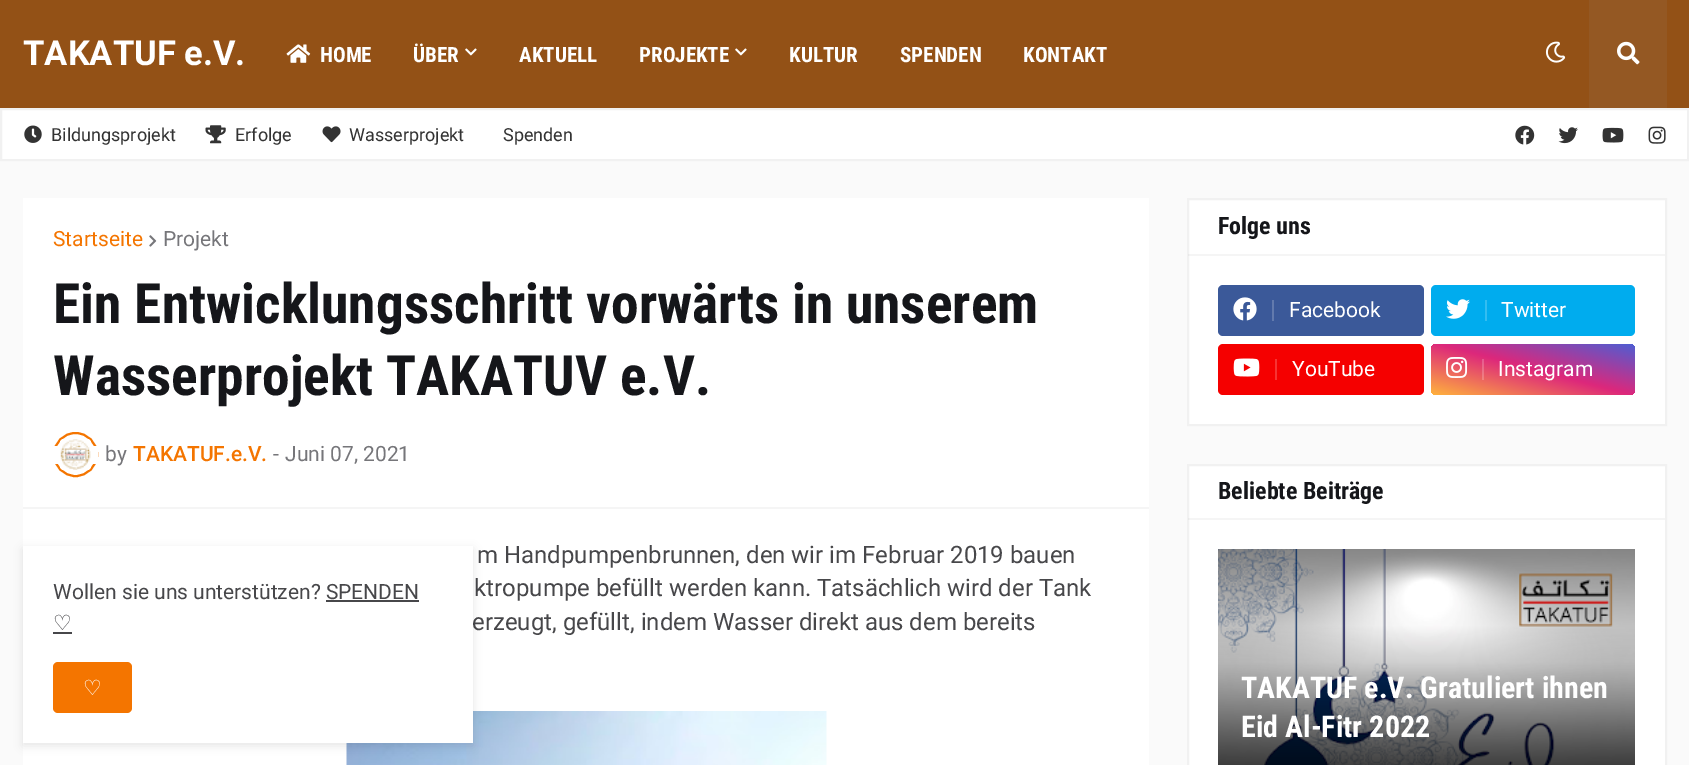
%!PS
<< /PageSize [1689 765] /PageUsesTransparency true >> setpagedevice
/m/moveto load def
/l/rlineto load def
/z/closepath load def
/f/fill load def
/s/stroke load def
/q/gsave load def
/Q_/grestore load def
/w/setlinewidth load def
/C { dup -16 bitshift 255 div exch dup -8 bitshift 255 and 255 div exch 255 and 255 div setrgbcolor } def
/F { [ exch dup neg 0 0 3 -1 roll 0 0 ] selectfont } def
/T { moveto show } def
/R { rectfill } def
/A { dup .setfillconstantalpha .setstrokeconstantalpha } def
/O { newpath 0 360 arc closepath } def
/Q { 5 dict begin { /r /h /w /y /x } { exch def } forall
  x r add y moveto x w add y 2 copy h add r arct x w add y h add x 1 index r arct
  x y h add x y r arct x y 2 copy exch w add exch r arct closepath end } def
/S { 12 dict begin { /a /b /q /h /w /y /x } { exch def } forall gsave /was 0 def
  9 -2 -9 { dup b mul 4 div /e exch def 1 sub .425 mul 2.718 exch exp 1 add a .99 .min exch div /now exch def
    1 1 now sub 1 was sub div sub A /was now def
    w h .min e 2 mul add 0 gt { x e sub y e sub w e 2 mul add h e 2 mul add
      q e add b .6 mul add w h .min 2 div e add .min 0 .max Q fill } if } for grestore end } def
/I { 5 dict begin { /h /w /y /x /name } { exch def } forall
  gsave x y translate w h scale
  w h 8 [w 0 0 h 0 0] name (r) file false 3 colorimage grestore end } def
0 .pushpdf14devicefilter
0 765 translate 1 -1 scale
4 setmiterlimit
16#FAFAFA C
0 0 1689 765 R
16#935116 C
0 0 1689 108 R
/Roboto-Bold 34.5 F
16#FFFFFF C
(TAKATUF e.V.) 23 65 T
(1.rgb) 286 44 25 19 I
/RobotoCondensed-Bold 21 F
(HOME) 320 62 T
(ÜBER) 413 62 T
(2.rgb) 465 48 12 8 I
(AKTUELL) 519 62 T
(PROJEKTE) 639 62 T
(2.rgb) 735 48 12 8 I
(KULTUR) 789 62 T
(SPENDEN) 900 62 T
(KONTAKT) 1023 62 T
(3.rgb) 1545 41 21 22 I
16#945823 C
1589 0 78 108 R
(4.rgb) 1617 41 23 24 I
16#FFFFFF C
1 109 m 1687 0 l 0 51 l -1687 0 l z q f Q_
16#F1F1F1 C
2 w
s
(5.rgb) 24 125 18 18 I
/Roboto-Regular 18 F
16#333333 C
(Bildungsprojekt) 51 141 T
(6.rgb) 205 125 21 19 I
(Erfolge) 235 141 T
(7.rgb) 322 126 19 17 I
(Wasserprojekt) 349 141 T
(Spenden) 503 141 T
(8.rgb) 1515 125 20 20 I
(9.rgb) 1558 127 20 17 I
(10.rgb) 1602 127 22 16 I
(11.rgb) 1648 126 18 18 I
16#FFFFFF C
23 198 1126 567 R
16#F5F5F5 C
23 507 1126 2 R
/Roboto-Regular 21 F
16#F47500 C
(Startseite) 53 246 T
(12.rgb) 149 235 8 12 I
16#76767A C
(Projekt) 163 246 T
/RobotoCondensed-Bold 55.5 F
16#15161A C
(Ein Entwicklungsschritt vorwärts in unserem) 53 323 T
(Wasserprojekt TAKATUV e.V.) 53 395 T
16#F47500 C
75.5 454.5 21.5 O s
16#FFFFFF C
53 446 45 18 R
(13.rgb) 60 439 31 31 I
/Roboto-Regular 21 F
16#76767A C
(by) 105 461 T
/Roboto-Medium 21 F
16#F47500 C
(TAKATUF.e.V.) 133 461 T
/Roboto-Regular 21 F
16#76767A C
(-) 273 461 T
(Juni 07, 2021) 285 461 T
/Roboto-Regular 24 F
16#47474A C
(m Handpumpenbrunnen, den wir im Februar 2019 bauen) 477 563 T
(ktropumpe befüllt werden kann. Tatsächlich wird der Tank) 474 596 T
(erzeugt, gefüllt, indem Wasser direkt aus dem bereits) 472 630 T
(14.rgb) 346 711 481 54 I
16#FFFFFF C
1188 199 m 478 0 l 0 226 l -478 0 l z q f Q_
16#F1F1F1 C
s
0.1 A
16#9B9B9B C
1188 254 477 2 R
/RobotoCondensed-Bold 24 F
1 A
16#15161A C
(Folge uns) 1218 234 T
16#3B5999 C
1218 285 206 51 5 Q f
(15.rgb) 1233 297 24 24 I
16#627AAD C
1272 300 2 21 R
/Roboto-Regular 21 F
16#FFFFFF C
(Facebook) 1289 317 T
16#00ACEE C
1431 285 204 51 5 Q f
(16.rgb) 1446 299 24 20 I
16#33BDF1 C
1485 300 2 21 R
16#FFFFFF C
(Twitter) 1501 317 T
16#F50000 C
1218 344 206 51 5 Q f
(17.rgb) 1233 358 27 19 I
16#F73333 C
1275 359 2 21 R
16#FFFFFF C
(YouTube) 1292 376 T
q 1431 344 204 51 5 Q clip newpath
<< /ShadingType 2 /ColorSpace /DeviceRGB /Coords [1520 418 1546 320] /Extend [true true] /Function << /FunctionType 3 /Domain [0 1] /Functions [<< /FunctionType 2 /Domain [0 1] /C0 [1 .694 .239] /C1 [.867 .153 .482] /N 1 >> << /FunctionType 2 /Domain [0 1] /C0 [.867 .153 .482] /C1 [.302 .369 .831] /N 1 >>] /Bounds [.5] /Encode [0 1 0 1] >> >> shfill Q_
q 1482 359 m 2 0 l 0 21 l -2 0 l z clip newpath
<< /ShadingType 2 /ColorSpace /DeviceRGB /Coords [1520 418 1546 320] /Extend [true true] /Function << /FunctionType 3 /Domain [0 1] /Functions [<< /FunctionType 2 /Domain [0 1] /C0 [1 .757 .392] /C1 [.894 .322 .584] /N 1 >> << /FunctionType 2 /Domain [0 1] /C0 [.894 .322 .584] /C1 [.443 .494 .867] /N 1 >>] /Bounds [.5] /Encode [0 1 0 1] >> >> shfill Q_
(18.rgb) 1446 357 22 21 I
(Instagram) 1498 376 T
1188 465 m 478 0 l 0 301 l -478 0 l z q f Q_
16#F1F1F1 C
s
0.1 A
16#9B9B9B C
1188 518 477 2 R
/RobotoCondensed-Bold 24 F
1 A
16#15161A C
(Beliebte Beiträge) 1218 499 T
(19.rgb) 1218 549 417 216 I
/RobotoCondensed-Bold 30 F
16#FFFFFF C
(TAKATUF e.V. Gratuliert ihnen) 1241 698 T
(Eid Al-Fitr 2022) 1241 737 T
16#000000 C
23 549 450 197 0 4.5 .1 S
16#FFFFFF C
23 546 450 197 R
/Roboto-Regular 21 F
16#47474A C
(Wollen sie uns unterstützen? SPENDEN) 53 599 T
/DejaVuSans-Regular 21 F
(♡) 53 630 T
326 600 93 2 R
53 632 19 2 R
16#F47500 C
53 662 79 51 5 Q f
16#FFFFFF C
(♡) 83 695 T
.poppdf14devicefilter showpage
